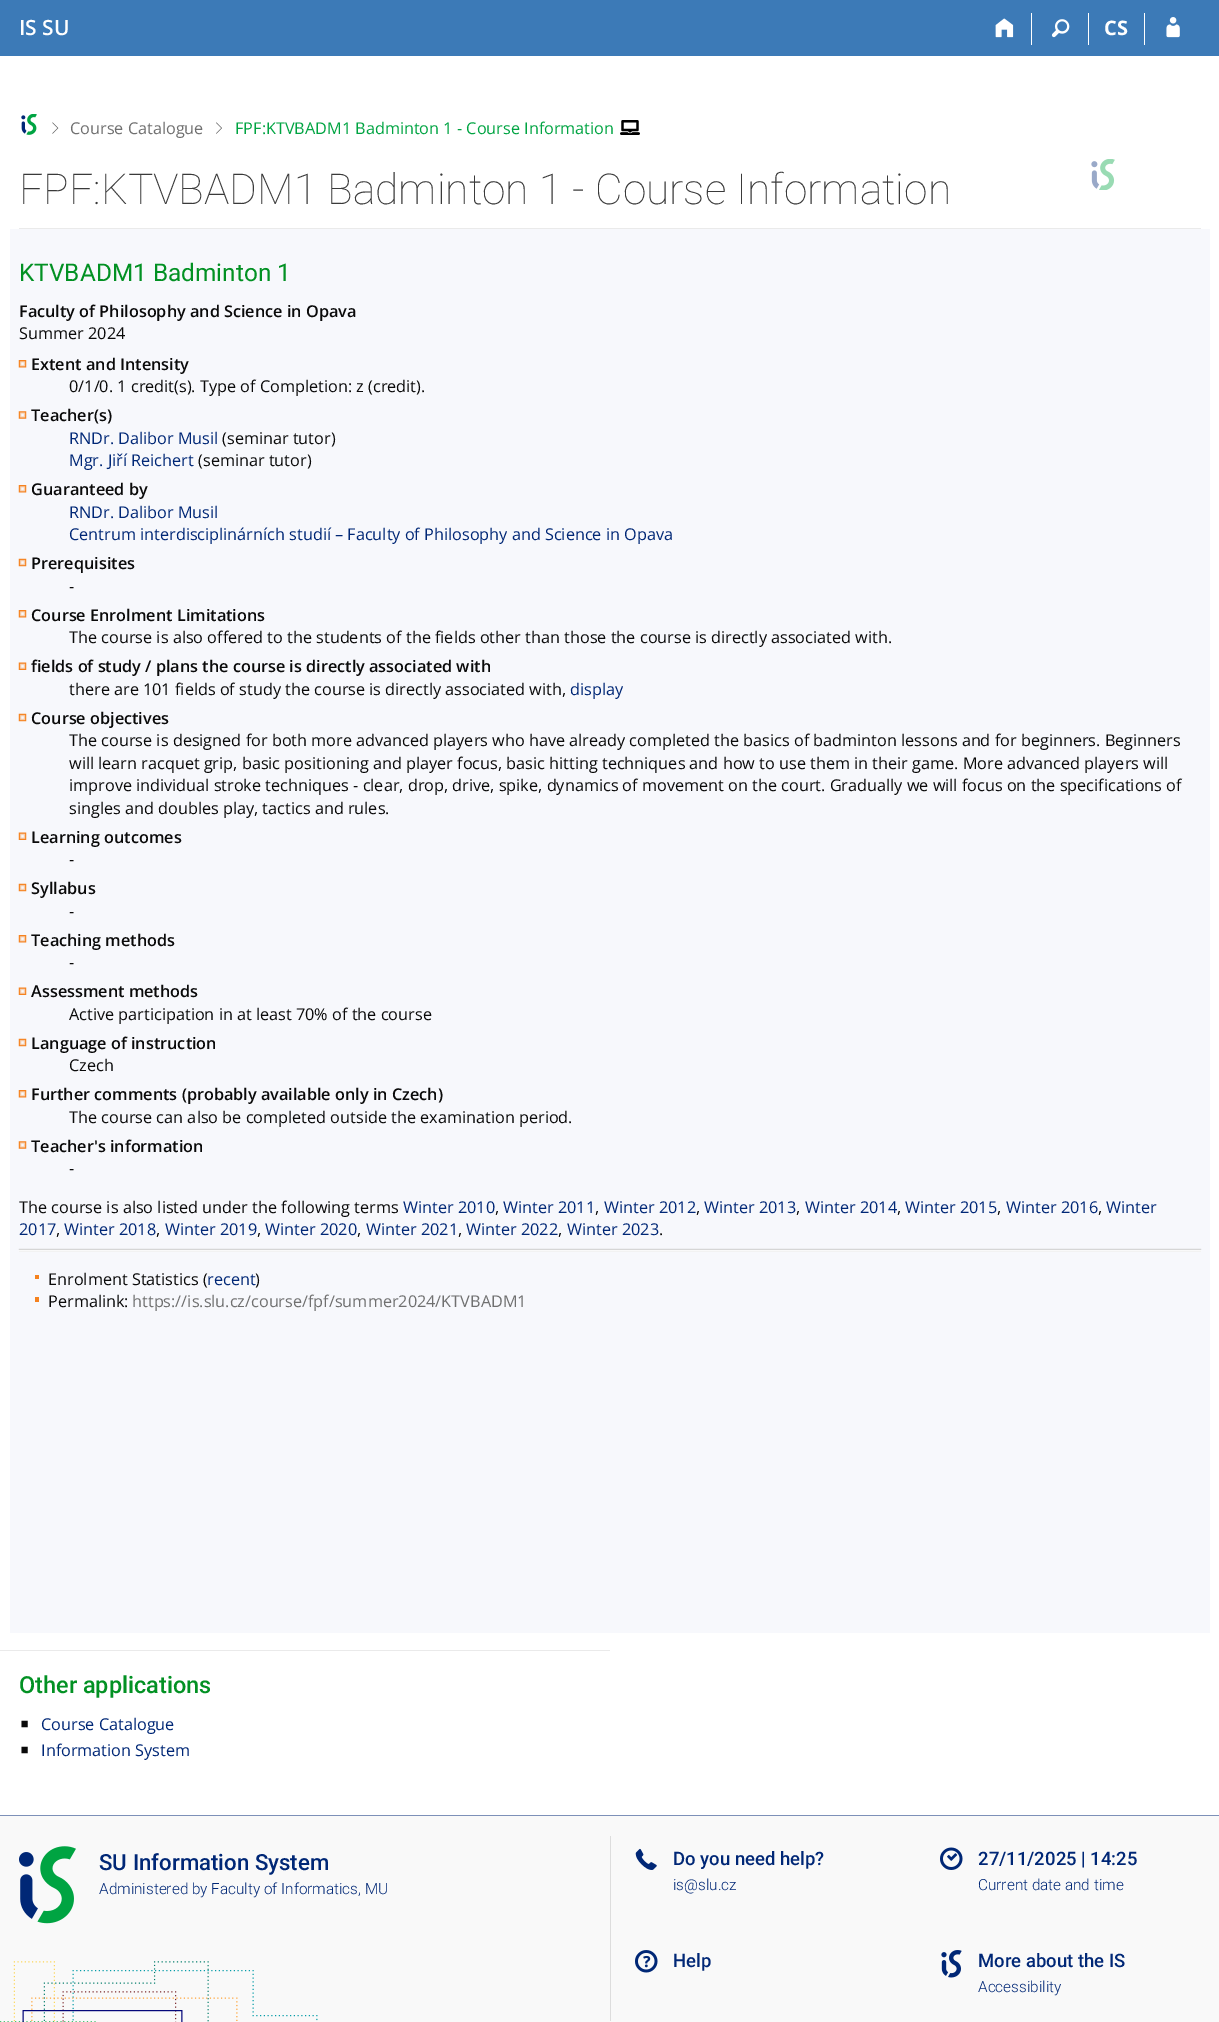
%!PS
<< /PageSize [1219 2022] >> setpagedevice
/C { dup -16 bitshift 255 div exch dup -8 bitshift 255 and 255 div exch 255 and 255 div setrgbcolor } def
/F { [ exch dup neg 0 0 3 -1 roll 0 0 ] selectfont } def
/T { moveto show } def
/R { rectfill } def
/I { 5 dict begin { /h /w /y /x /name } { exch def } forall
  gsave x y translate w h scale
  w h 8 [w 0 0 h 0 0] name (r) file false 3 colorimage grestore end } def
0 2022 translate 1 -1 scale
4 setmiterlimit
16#FFFFFF C
0 0 1219 2022 R
16#3C7AB7 C
0 0 1219 56 R
/OpenSans-SemiBold 21 F
16#FFFFFF C
(IS SU) 19 35 T
1031 13 1 32 R
(1.rgb) 995 18 19 20 I
1088 13 1 32 R
(2.rgb) 1051 19 19 19 I
1144 13 1 32 R
/OpenSans-Bold 20 F
(CS) 1104 35 T
(3.rgb) 1166 17 14 21 I
(4.rgb) 21 114 16 21 I
(5.rgb) 52 122 7 12 I
/OpenSans-Regular 16.25 F
16#707070 C
(Course Catalogue) 70 134 T
(6.rgb) 216 122 6 12 I
16#00A442 C
(FPF:KTVBADM1 Badminton 1 - Course Information) 235 134 T
(7.rgb) 620 120 20 15 I
/Roboto-Thin 42.5 F
16#3A3A3A C
(FPF:KTVBADM1 Badminton 1 - Course Information) 19 204 T
(8.rgb) 1091 159 24 31 I
16#EAEAEA C
19 228 1182 1 R
16#F7F8FC C
10 229 1200 1404 R
/Roboto-Regular 24.4 F
16#029123 C
(KTVBADM1 Badminton 1) 19 281 T
/OpenSans-SemiBold 16.25 F
16#0A0A0A C
(Faculty of Philosophy and Science in Opava) 19 317 T
/OpenSans-Regular 16.25 F
(Summer 2024) 19 339 T
(9.rgb) 18 360 9 8 I
/OpenSans-SemiBold 16.25 F
(Extent and Intensity) 31 370 T
/OpenSans-Regular 16.25 F
(0/1/0. 1 credit\(s\). Type of Completion: z \(credit\).) 69 392 T
(10.rgb) 18 411 9 8 I
/OpenSans-SemiBold 16.25 F
(Teacher\(s\)) 31 421 T
/OpenSans-Regular 16.25 F
16#002776 C
(RNDr. Dalibor Musil) 69 444 T
16#0A0A0A C
(\(seminar tutor\)) 222 444 T
16#002776 C
(Mgr. Jiří Reichert) 69 466 T
16#0A0A0A C
(\(seminar tutor\)) 198 466 T
(9.rgb) 18 485 9 8 I
/OpenSans-SemiBold 16.25 F
(Guaranteed by) 31 495 T
/OpenSans-Regular 16.25 F
16#002776 C
(RNDr. Dalibor Musil) 69 518 T
(Centrum interdisciplinárních studií – Faculty of Philosophy and Science in Opava) 69 540 T
(11.rgb) 18 558 9 9 I
/OpenSans-SemiBold 16.25 F
16#0A0A0A C
(Prerequisites) 31 569 T
/OpenSans-Regular 16.25 F
(-) 69 592 T
(9.rgb) 18 610 9 8 I
/OpenSans-SemiBold 16.25 F
(Course Enrolment Limitations) 31 621 T
/OpenSans-Regular 16.25 F
(The course is also offered to the students of the fields other than those the course is directly associated with.) 69 643 T
(12.rgb) 18 662 9 8 I
/OpenSans-SemiBold 16.25 F
(fields of study / plans the course is directly associated with) 31 672 T
/OpenSans-Regular 16.25 F
(there are 101 fields of study the course is directly associated with,) 69 695 T
16#002776 C
(display) 570 695 T
(11.rgb) 18 713 9 9 I
/OpenSans-SemiBold 16.25 F
16#0A0A0A C
(Course objectives) 31 724 T
/OpenSans-Regular 16.25 F
(The course is designed for both more advanced players who have already completed the basics of badminton lessons and for beginners. Beginners) 69 746 T
(will learn racquet grip, basic positioning and player focus, basic hitting techniques and how to use them in their game. More advanced players will) 69 769 T
(improve individual stroke techniques - clear, drop, drive, spike, dynamics of movement on the court. Gradually we will focus on the specifications of) 69 791 T
(singles and doubles play, tactics and rules.) 69 814 T
(12.rgb) 18 832 9 8 I
/OpenSans-SemiBold 16.25 F
(Learning outcomes) 31 843 T
/OpenSans-Regular 16.25 F
(-) 69 865 T
(11.rgb) 18 883 9 9 I
/OpenSans-SemiBold 16.25 F
(Syllabus) 31 894 T
/OpenSans-Regular 16.25 F
(-) 69 917 T
(9.rgb) 18 935 9 8 I
/OpenSans-SemiBold 16.25 F
(Teaching methods) 31 946 T
/OpenSans-Regular 16.25 F
(-) 69 968 T
(12.rgb) 18 987 9 8 I
/OpenSans-SemiBold 16.25 F
(Assessment methods) 31 997 T
/OpenSans-Regular 16.25 F
(Active participation in at least 70% of the course) 69 1020 T
(11.rgb) 18 1038 9 9 I
/OpenSans-SemiBold 16.25 F
(Language of instruction) 31 1049 T
/OpenSans-Regular 16.25 F
(Czech) 69 1071 T
(9.rgb) 18 1090 9 8 I
/OpenSans-SemiBold 16.25 F
(Further comments \(probably available only in Czech\)) 31 1100 T
/OpenSans-Regular 16.25 F
(The course can also be completed outside the examination period.) 69 1123 T
(10.rgb) 18 1141 9 8 I
/OpenSans-SemiBold 16.25 F
(Teacher's information) 31 1152 T
/OpenSans-Regular 16.25 F
(-) 69 1174 T
(The course is also listed under the following terms) 19 1213 T
16#002776 C
(Winter 2010) 403 1213 T
16#0A0A0A C
(,) 495 1213 T
16#002776 C
(Winter 2011) 503 1213 T
16#0A0A0A C
(,) 595 1213 T
16#002776 C
(Winter 2012) 604 1213 T
16#0A0A0A C
(,) 696 1213 T
16#002776 C
(Winter 2013) 704 1213 T
16#0A0A0A C
(,) 796 1213 T
16#002776 C
(Winter 2014) 805 1213 T
16#0A0A0A C
(,) 897 1213 T
16#002776 C
(Winter 2015) 905 1213 T
16#0A0A0A C
(,) 997 1213 T
16#002776 C
(Winter 2016) 1006 1213 T
16#0A0A0A C
(,) 1098 1213 T
16#002776 C
(Winter) 1106 1213 T
(2017) 19 1235 T
16#0A0A0A C
(,) 56 1235 T
16#002776 C
(Winter 2018) 64 1235 T
16#0A0A0A C
(,) 156 1235 T
16#002776 C
(Winter 2019) 165 1235 T
16#0A0A0A C
(,) 257 1235 T
16#002776 C
(Winter 2020) 265 1235 T
16#0A0A0A C
(,) 357 1235 T
16#002776 C
(Winter 2021) 366 1235 T
16#0A0A0A C
(,) 458 1235 T
16#002776 C
(Winter 2022) 466 1235 T
16#0A0A0A C
(,) 558 1235 T
16#002776 C
(Winter 2023) 567 1235 T
16#0A0A0A C
(.) 659 1235 T
16#EEEEEE C
19 1251 1182 1 R
(13.rgb) 18 1248 1184 4 I
16#F5821F C
35 1275 4 4 R
16#0A0A0A C
(Enrolment Statistics \() 48 1285 T
16#002776 C
(recent) 207 1285 T
16#0A0A0A C
(\)) 255 1285 T
16#F5821F C
35 1297 4 5 R
16#0A0A0A C
(Permalink:) 48 1307 T
16#707070 C
(https://is.slu.cz/course/fpf/summer2024/KTVBADM1) 132 1307 T
16#EAEAEA C
0 1650 610 1 R
/Roboto-Medium 23.5 F
16#029123 C
(Other applications) 19 1693 T
/LiberationSans-Regular 26 F
16#0A0A0A C
(▪) 20 1732 T
/OpenSans-Regular 16.25 F
16#002776 C
(Course Catalogue) 41 1730 T
/LiberationSans-Regular 26 F
16#0A0A0A C
(▪) 20 1758 T
/OpenSans-Regular 16.25 F
16#002776 C
(Information System) 41 1756 T
16#F9F9F9 C
0 1816 1219 206 R
16#7D90B8 C
0 1815 1219 1 R
(14.rgb) 0 1961 318 61 I
(15.rgb) 19 1846 57 78 I
/Roboto-Medium 22.25 F
16#002776 C
(SU Information System) 99 1870 T
/Roboto-Light 15.3 F
(Administered by Faculty of Informatics, MU) 99 1894 T
16#DDDDDD C
610 1836 1 185 R
(16.rgb) 635 1848 22 22 I
/Roboto-Medium 18.5 F
16#002776 C
(Do you need help?) 673 1865 T
/Roboto-Light 15.3 F
(is@slu.cz) 673 1890 T
(17.rgb) 635 1950 23 23 I
/Roboto-Medium 18.5 F
(Help) 673 1967 T
(18.rgb) 940 1847 23 23 I
(27/11/2025 | 14:25) 978 1865 T
/Roboto-Light 15.3 F
(Current date and time) 978 1890 T
(19.rgb) 941 1950 21 28 I
/Roboto-Medium 18.5 F
(More about the IS) 978 1967 T
/Roboto-Light 15.3 F
(Accessibility) 978 1992 T
showpage
